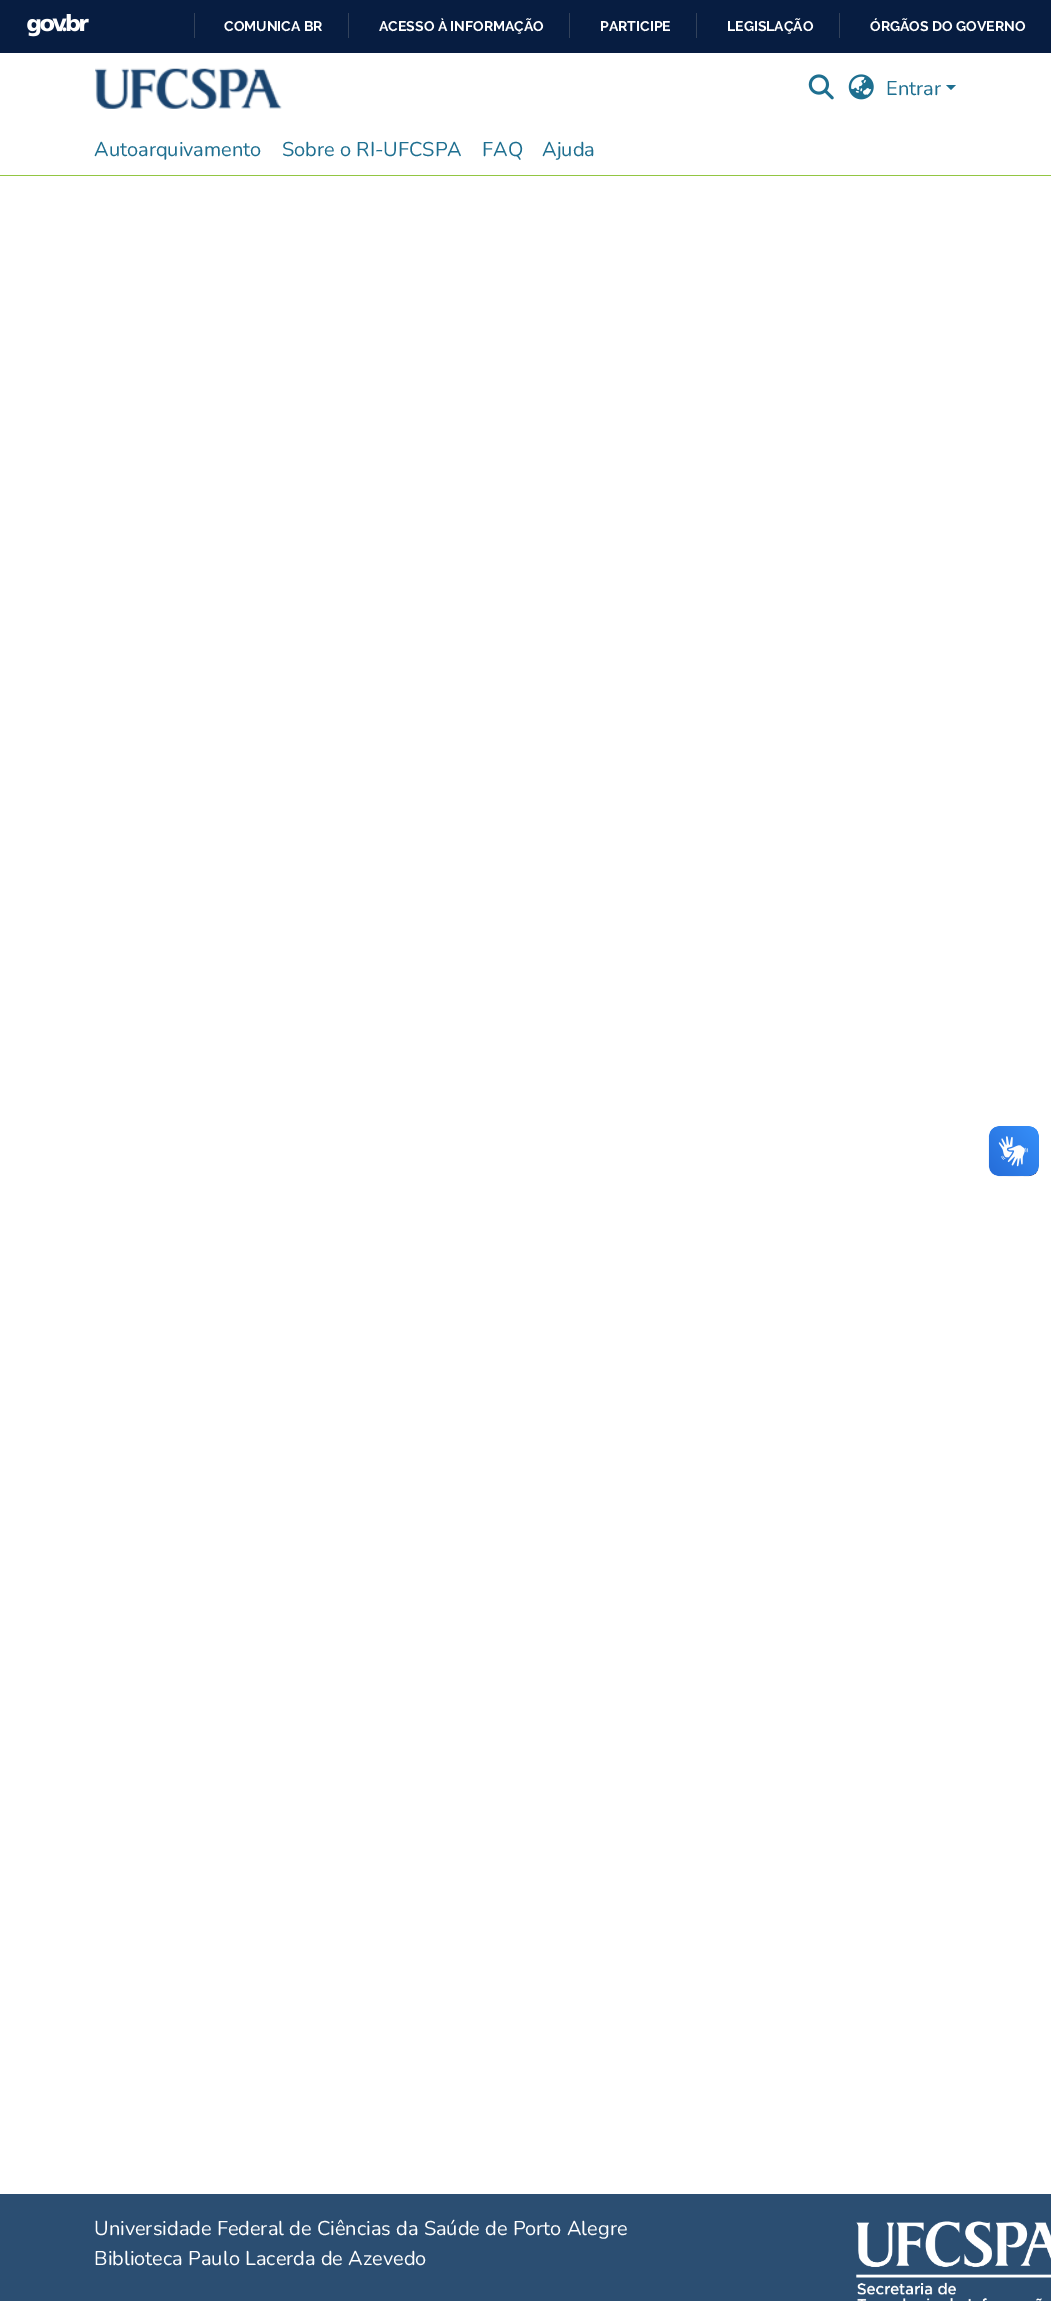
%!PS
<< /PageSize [1051 2301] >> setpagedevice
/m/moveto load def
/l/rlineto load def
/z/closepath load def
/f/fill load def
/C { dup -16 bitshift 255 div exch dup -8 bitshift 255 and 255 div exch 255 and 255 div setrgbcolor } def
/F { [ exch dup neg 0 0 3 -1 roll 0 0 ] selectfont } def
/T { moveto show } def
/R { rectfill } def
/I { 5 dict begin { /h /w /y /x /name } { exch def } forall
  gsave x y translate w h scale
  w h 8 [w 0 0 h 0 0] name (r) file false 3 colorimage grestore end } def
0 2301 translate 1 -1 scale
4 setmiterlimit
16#FFFFFF C
0 0 1051 2301 R
16#071D41 C
0 0 1051 53 R
(1.rgb) 27 14 62 23 I
16#32425B C
194 13 1 25 R
/Raleway-Bold 14 F
16#FFFFFF C
(COMUNICA BR) 224 31 T
16#32425B C
348 13 1 25 R
16#FFFFFF C
(ACESSO À INFORMAÇÃO) 379 31 T
16#32425B C
569 13 1 25 R
16#FFFFFF C
(PARTICIPE) 600 31 T
16#32425B C
696 13 1 25 R
16#FFFFFF C
(LEGISLAÇÃO) 727 31 T
16#32425B C
839 13 1 25 R
16#FFFFFF C
(ÓRGÃOS DO GOVERNO) 870 31 T
16#92C642 C
0 175 1051 1 R
(2.rgb) 95 68 187 41 I
(3.rgb) 808 74 26 26 I
(4.rgb) 848 74 26 26 I
/Nunito-Regular 20 F
16#1E6F90 C
(Entrar) 886 95 T
946 85 m 10 0 l -5 5 l z f
(Autoarquivamento) 94 156 T
(Sobre o RI-UFCSPA) 282 156 T
(FAQ) 482 156 T
(Ajuda) 542 156 T
16#2B4E72 C
0 2194 1051 107 R
16#FFFFFF C
(Universidade Federal de Ciências da Saúde de Porto Alegre) 94 2235 T
(Biblioteca Paulo Lacerda de Azevedo) 94 2265 T
(5.rgb) 856 2221 195 80 I
(6.rgb) 988 1126 51 51 I
(7.rgb) 989 1126 50 50 I
showpage
